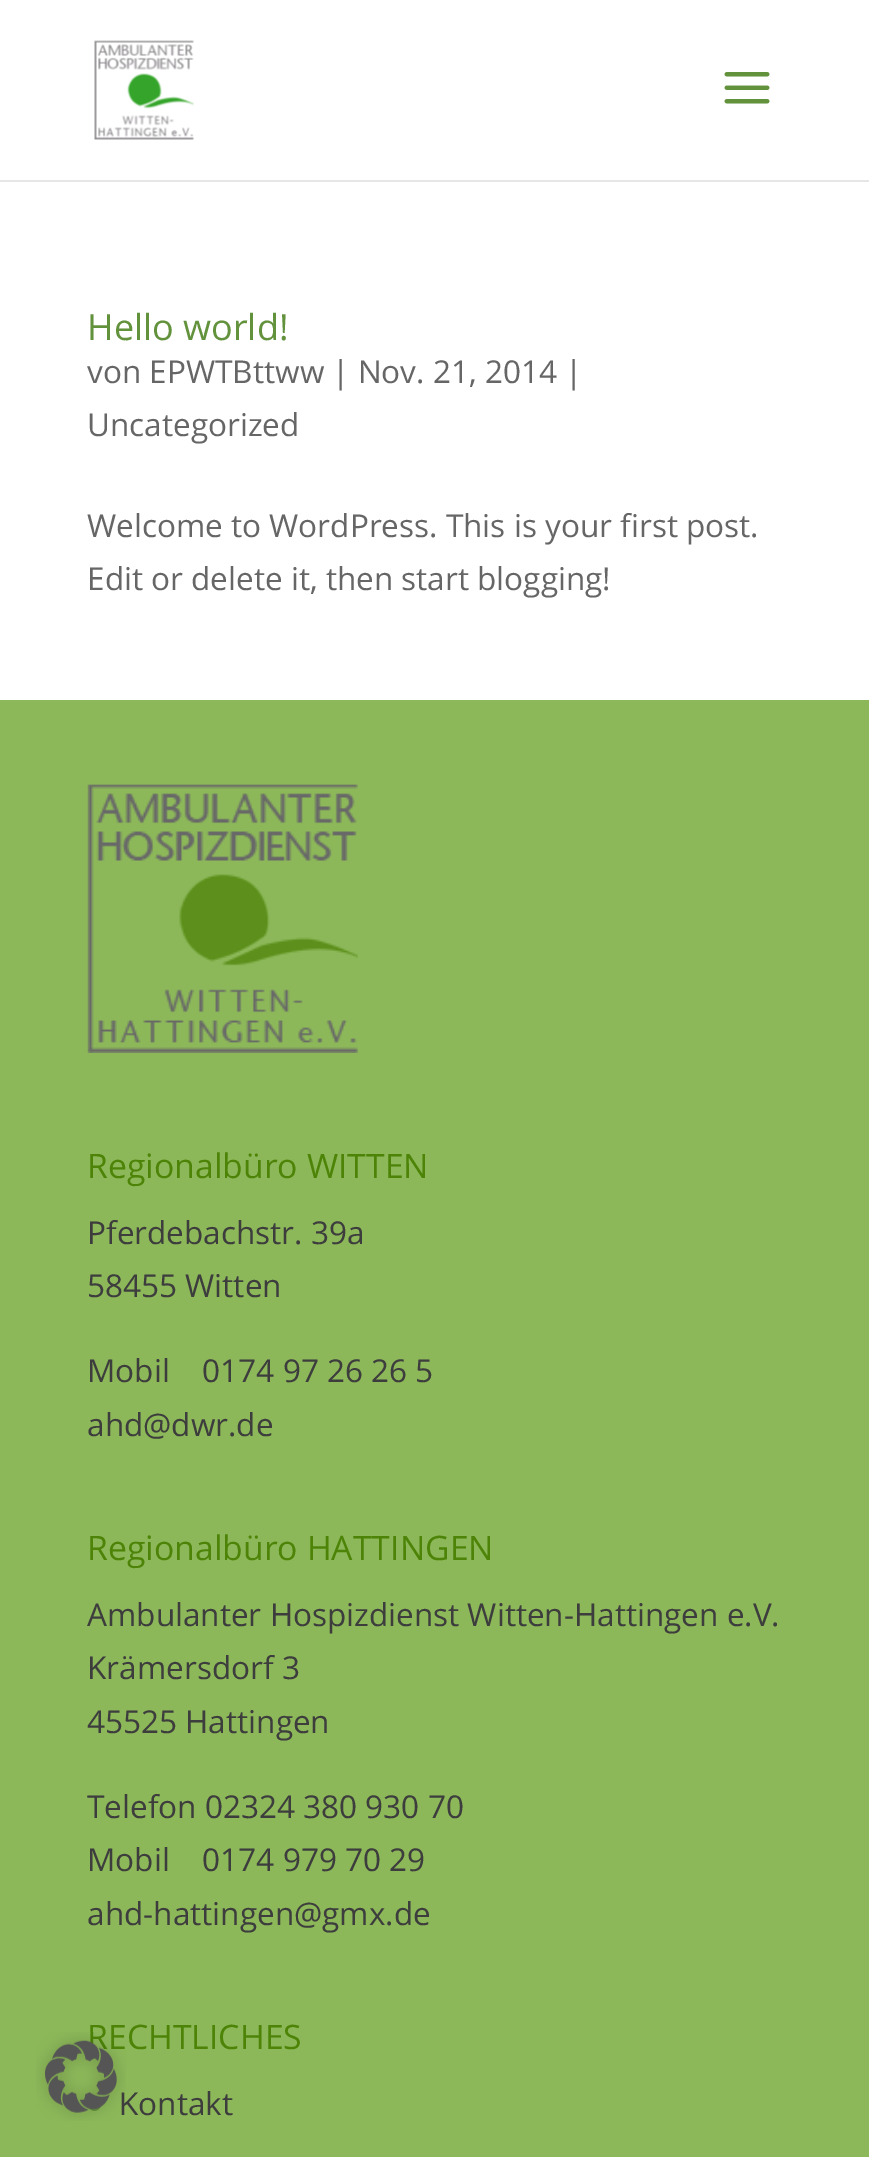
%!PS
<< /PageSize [869 2157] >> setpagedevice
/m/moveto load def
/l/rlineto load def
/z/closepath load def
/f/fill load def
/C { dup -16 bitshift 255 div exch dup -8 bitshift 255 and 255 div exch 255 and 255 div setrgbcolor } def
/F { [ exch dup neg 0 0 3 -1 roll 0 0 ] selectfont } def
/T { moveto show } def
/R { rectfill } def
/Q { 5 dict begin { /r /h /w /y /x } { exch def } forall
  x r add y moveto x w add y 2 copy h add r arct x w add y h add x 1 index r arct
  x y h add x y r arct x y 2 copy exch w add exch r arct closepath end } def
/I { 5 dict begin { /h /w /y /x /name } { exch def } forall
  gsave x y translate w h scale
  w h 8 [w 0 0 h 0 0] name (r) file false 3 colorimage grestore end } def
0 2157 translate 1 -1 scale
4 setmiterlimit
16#FFFFFF C
0 0 869 2157 R
16#8CB859 C
0 700 869 1457 R
/OpenSans-Regular 33.75 F
16#4D8408 C
(RECHTLICHES) 87 2049 T
16#63923D C
88 2097 13 14 6.5 Q f
/OpenSans-Regular 31.5 F
16#3D3D3D C
(Kontakt) 119 2115 T
(1.rgb) 36 2032 90 89 I
16#E6E6E6 C
0 180 m 0 2 l 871 0 l 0 -180 l 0 178 l z f
(2.rgb) 94 40 100 100 I
(3.rgb) 724 72 46 32 I
/OpenSans-Regular 36 F
16#63923D C
(Hello world!) 87 340 T
/OpenSans-Regular 31.5 F
16#666666 C
(von EPWTBttww | Nov. 21, 2014 |) 87 383 T
(Uncategorized) 87 436 T
(Welcome to WordPress. This is your first post.) 87 537 T
(Edit or delete it, then start blogging!) 87 590 T
(4.rgb) 87 784 271 269 I
/OpenSans-Regular 33.75 F
16#4D8408 C
(Regionalbüro WITTEN) 87 1178 T
/OpenSans-Regular 31.5 F
16#3D3D3D C
(Pferdebachstr. 39a) 87 1244 T
(58455 Witten) 87 1297 T
(Mobil    0174 97 26 26 5) 87 1382 T
(ahd@dwr.de) 87 1436 T
/OpenSans-Regular 33.75 F
16#4D8408 C
(Regionalbüro HATTINGEN) 87 1560 T
/OpenSans-Regular 31.5 F
16#3D3D3D C
(Ambulanter Hospizdienst Witten-Hattingen e.V.) 87 1626 T
(Krämersdorf 3) 87 1679 T
(45525 Hattingen) 87 1733 T
(Telefon 02324 380 930 70) 87 1818 T
(Mobil    0174 979 70 29) 87 1871 T
(ahd-hattingen@gmx.de) 87 1925 T
showpage
